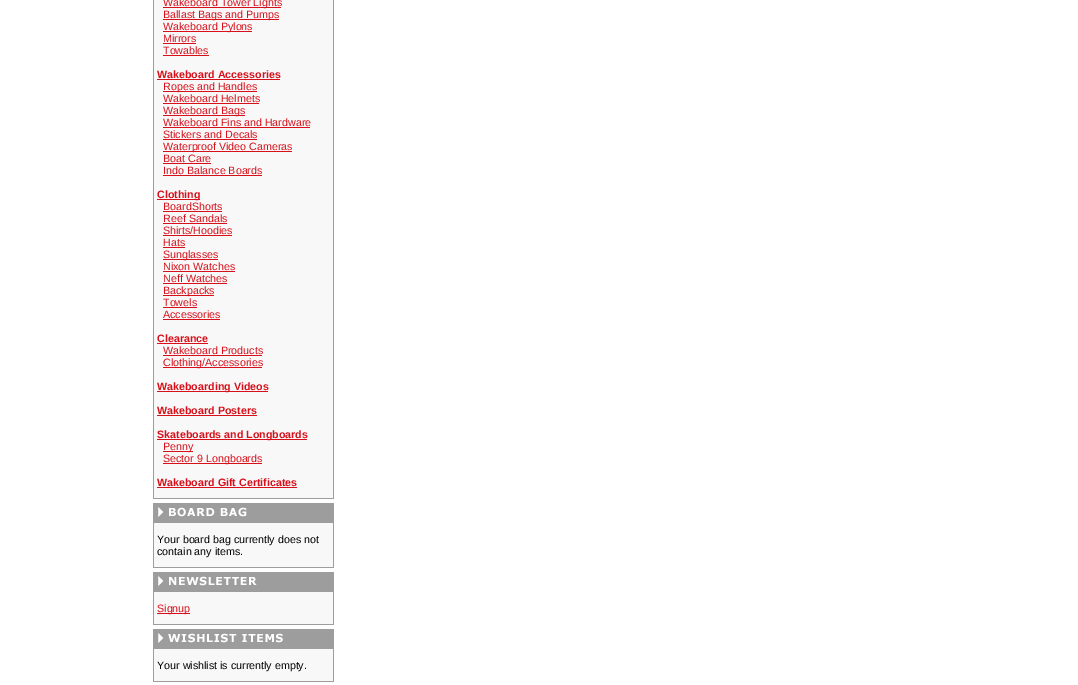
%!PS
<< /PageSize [1078 685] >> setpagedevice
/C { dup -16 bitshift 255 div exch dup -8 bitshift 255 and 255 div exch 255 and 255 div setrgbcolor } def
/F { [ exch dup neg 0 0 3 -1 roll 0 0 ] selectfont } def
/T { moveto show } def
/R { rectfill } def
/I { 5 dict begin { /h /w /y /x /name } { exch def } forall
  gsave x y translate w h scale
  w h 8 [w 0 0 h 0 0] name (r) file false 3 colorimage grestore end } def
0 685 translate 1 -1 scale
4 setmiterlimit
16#FFFFFF C
0 0 1078 685 R
16#9D9D9D C
153 0 181 499 R
16#F8F8F9 C
154 0 179 498 R
16#D7111B C
163 7 118 1 R
/LiberationSans-Regular 10.7 F
(Wakeboard Tower Lights) 163 6 T
163 19 116 1 R
(Ballast Bags and Pumps) 163 18 T
163 31 89 1 R
(Wakeboard Pylons) 163 30 T
(Mirrors) 163 42 T
163 43 33 1 R
(Towables) 163 54 T
163 55 46 1 R
/LiberationSans-Bold 10.7 F
(Wakeboard Accessories) 157 78 T
157 79 123 1 R
163 91 94 1 R
/LiberationSans-Regular 10.7 F
(Ropes and Handles) 163 90 T
(Wakeboard Helmets) 163 102 T
163 103 96 1 R
163 115 82 1 R
(Wakeboard Bags) 163 114 T
(Wakeboard Fins and Hardware) 163 126 T
163 127 147 1 R
(Stickers and Decals) 163 138 T
163 139 94 1 R
163 151 129 1 R
(Waterproof Video Cameras) 163 150 T
(Boat Care) 163 162 T
163 163 48 1 R
(Indo Balance Boards) 163 174 T
163 175 99 1 R
157 199 43 1 R
/LiberationSans-Bold 10.7 F
(Clothing) 157 198 T
/LiberationSans-Regular 10.7 F
(BoardShorts) 163 210 T
163 211 59 1 R
(Reef Sandals) 163 222 T
163 223 64 1 R
(Shirts/Hoodies) 163 234 T
163 235 69 1 R
(Hats) 163 246 T
163 247 22 1 R
163 259 55 1 R
(Sunglasses) 163 258 T
(Nixon Watches) 163 270 T
163 271 72 1 R
(Neff Watches) 163 282 T
163 283 64 1 R
163 295 51 1 R
(Backpacks) 163 294 T
(Towels) 163 306 T
163 307 34 1 R
(Accessories) 163 318 T
163 319 57 1 R
/LiberationSans-Bold 10.7 F
(Clearance) 157 342 T
157 343 51 1 R
/LiberationSans-Regular 10.7 F
(Wakeboard Products) 163 354 T
163 355 99 1 R
163 367 99 1 R
(Clothing/Accessories) 163 366 T
157 391 111 1 R
/LiberationSans-Bold 10.7 F
(Wakeboarding Videos) 157 390 T
(Wakeboard Posters) 157 414 T
157 415 100 1 R
157 439 150 1 R
(Skateboards and Longboards) 157 438 T
163 451 30 1 R
/LiberationSans-Regular 10.7 F
(Penny) 163 450 T
163 463 99 1 R
(Sector 9 Longboards) 163 462 T
/LiberationSans-Bold 10.7 F
(Wakeboard Gift Certificates) 157 486 T
157 487 140 1 R
16#9D9D9D C
153 503 181 65 R
(1.rgb) 158 507 89 10 I
16#F8F8F9 C
154 523 179 44 R
/LiberationSans-Regular 10.7 F
16#000000 C
(Your board bag currently does not) 157 543 T
(contain any items.) 157 555 T
16#9D9D9D C
153 572 181 53 R
(2.rgb) 158 576 99 10 I
16#F8F8F9 C
154 592 179 32 R
16#D7111B C
157 613 33 1 R
(Signup) 157 612 T
16#9D9D9D C
153 629 181 53 R
(3.rgb) 158 633 125 10 I
16#F8F8F9 C
154 649 179 32 R
16#000000 C
(Your wishlist is currently empty.) 157 669 T
showpage
